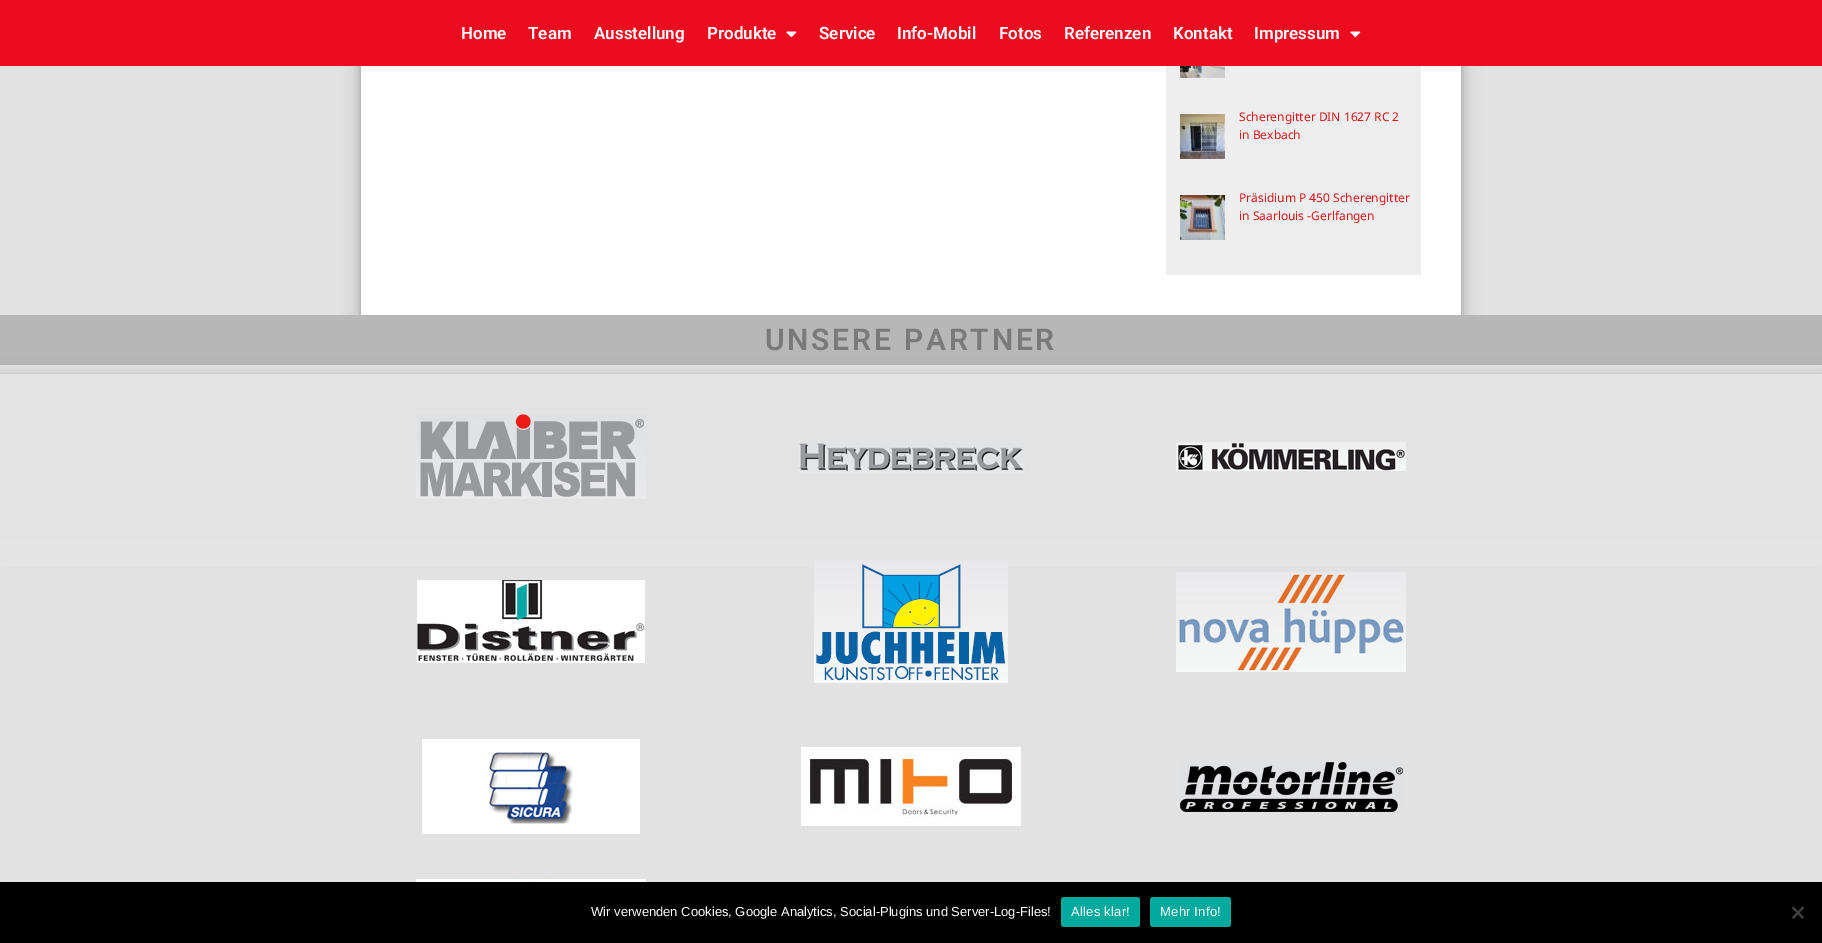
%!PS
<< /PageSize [1822 943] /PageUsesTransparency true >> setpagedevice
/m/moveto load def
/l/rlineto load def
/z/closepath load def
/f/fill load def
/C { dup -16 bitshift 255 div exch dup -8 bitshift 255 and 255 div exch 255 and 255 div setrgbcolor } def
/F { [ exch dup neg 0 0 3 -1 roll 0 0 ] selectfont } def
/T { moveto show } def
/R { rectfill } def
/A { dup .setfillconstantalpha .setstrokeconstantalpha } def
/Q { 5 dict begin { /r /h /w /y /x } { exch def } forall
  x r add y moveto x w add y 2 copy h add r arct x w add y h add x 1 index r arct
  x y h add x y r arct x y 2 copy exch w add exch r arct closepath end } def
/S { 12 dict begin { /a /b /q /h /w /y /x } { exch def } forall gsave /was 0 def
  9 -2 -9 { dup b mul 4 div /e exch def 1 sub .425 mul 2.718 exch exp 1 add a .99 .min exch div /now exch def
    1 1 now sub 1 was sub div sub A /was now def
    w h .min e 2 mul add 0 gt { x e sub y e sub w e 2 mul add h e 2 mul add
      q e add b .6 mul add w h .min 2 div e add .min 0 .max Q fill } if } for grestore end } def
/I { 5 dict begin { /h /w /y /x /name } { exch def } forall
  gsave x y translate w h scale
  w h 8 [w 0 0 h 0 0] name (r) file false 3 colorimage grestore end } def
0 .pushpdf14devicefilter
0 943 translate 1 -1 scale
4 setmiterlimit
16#E2E2E2 C
0 0 1822 943 R
16#000000 C
361 -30 1100 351 0 10 .19 S
361 -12 1100 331 0 4 .2 S
16#ED0B1F C
0 0 1822 66 R
/Roboto-SemiBold 17 F
16#FFFFFF C
(Home) 461 39 T
(Team) 528 39 T
(Ausstellung) 594 39 T
(Produkte) 707 39 T
(1.rgb) 786 31 11 7 I
(Service) 819 39 T
(Info-Mobil) 897 39 T
(Fotos) 999 39 T
(Referenzen) 1064 39 T
(Kontakt) 1173 39 T
(Impressum) 1254 39 T
(1.rgb) 1350 31 11 7 I
361 66 1100 249 R
16#EEEEEE C
1166 66 255 209 R
(2.rgb) 1180 66 45 12 I
(3.rgb) 1180 114 45 45 I
/NotoSans-Regular 12 F
16#DD1518 C
(Scherengitter DIN 1627 RC 2) 1239 121 T
(in Bexbach) 1239 139 T
(4.rgb) 1180 195 45 45 I
(Präsidium P 450 Scherengitter) 1239 202 T
(in Saarlouis -Gerlfangen) 1239 220 T
16#B7B7B7 C
0 315 1822 50 R
/Roboto-SemiBold 30 F
16#7A7A7A C
765 350 m 2.75 0 (UNSERE PARTNER) ashow
16#000000 C
0 380 1822 165 0 10 .19 S
0 378 1822 165 0 4 .2 S
16#E3E3E4 C
0 374 1822 165 R
(5.rgb) 416 414 230 85 I
(6.rgb) 798 443 227 30 I
(7.rgb) 1176 442 230 29 I
16#E4E4E4 C
0 539 1822 28 R
(8.rgb) 417 580 228 83 I
(9.rgb) 814 560 194 123 I
(10.rgb) 1176 572 230 100 I
(11.rgb) 422 739 218 95 I
(12.rgb) 801 747 220 79 I
(13.rgb) 1180 762 223 50 I
(14.rgb) 416 879 230 3 I
16#000000 C
0 882 1822 61 R
/LiberationSans-Regular 13 F
16#FFFFFF C
(Wir verwenden Cookies, Google Analytics, Social-Plugins und Server-Log-Files!) 591 916 T
16#00A99D C
1061 897 79 30 3 Q f
16#FFFFFF C
1071 916 m .25 0 (Alles klar!) ashow
16#00A99D C
1150 897 81 30 3 Q f
16#FFFFFF C
1160 916 m .25 0 (Mehr Info!) ashow
16#404040 C
1802.5 906.5 m 1.5 1.5 l -10.5 11 l -1.5 -1.5 l z f
1792 908 m 1.5 -1.5 l 10.5 11 l -1.5 1.5 l z f
.poppdf14devicefilter showpage
